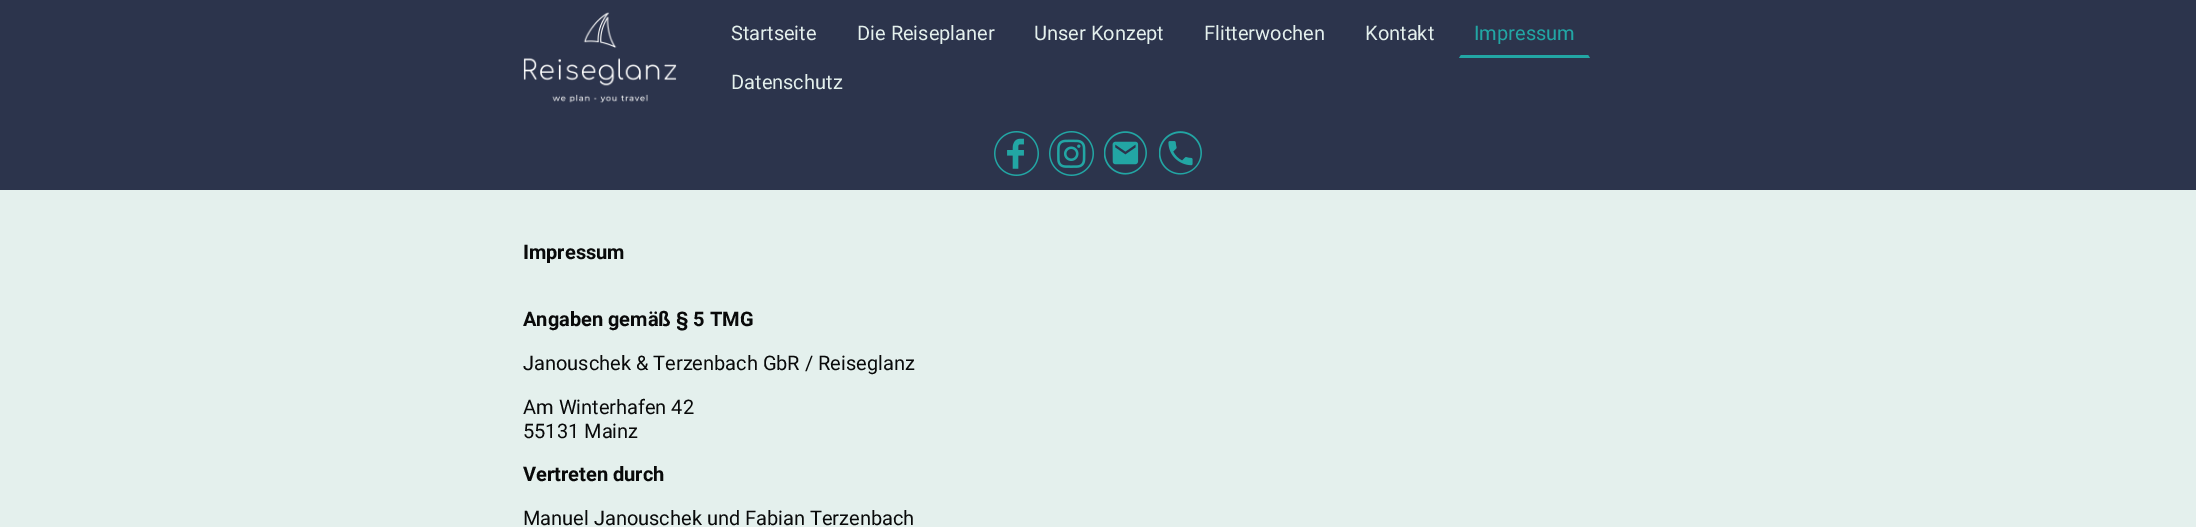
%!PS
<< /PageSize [2196 527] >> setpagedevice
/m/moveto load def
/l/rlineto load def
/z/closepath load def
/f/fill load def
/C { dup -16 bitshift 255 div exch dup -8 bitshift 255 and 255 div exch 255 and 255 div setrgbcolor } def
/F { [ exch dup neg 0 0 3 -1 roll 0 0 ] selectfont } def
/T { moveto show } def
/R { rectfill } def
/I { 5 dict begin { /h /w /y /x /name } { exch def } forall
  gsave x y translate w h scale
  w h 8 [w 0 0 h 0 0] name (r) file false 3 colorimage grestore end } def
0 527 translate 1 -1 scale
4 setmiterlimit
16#2C344C C
0 0 2196 527 R
(1.rgb) 523 12 154 91 I
/Roboto-Regular 20 F
16#E4F0ED C
(Startseite) 731 40 T
(Die Reiseplaner) 857 40 T
(Unser Konzept) 1034 40 T
(Flitterwochen) 1204 40 T
(Kontakt) 1365 40 T
16#22A6A4 C
1590 58 m -131 0 l 2 -3 l 127 0 l z f
(Impressum) 1474 40 T
16#E4F0ED C
(Datenschutz) 731 89 T
(2.rgb) 994 131 45 45 I
(3.rgb) 1049 131 45 45 I
(4.rgb) 1104 131 43 44 I
(5.rgb) 1159 131 43 44 I
0 190 2196 337 R
/Roboto-Bold 20 F
16#090A0A C
(Impressum) 523 259 T
(Angaben gemäß § 5 TMG) 523 326 T
/Roboto-Regular 20 F
(Janouschek & Terzenbach GbR / Reiseglanz) 523 370 T
(Am Winterhafen 42) 523 414 T
(55131 Mainz) 523 438 T
/Roboto-Bold 20 F
(Vertreten durch) 523 481 T
/Roboto-Regular 20 F
(Manuel Janouschek und Fabian Terzenbach) 523 525 T
showpage
